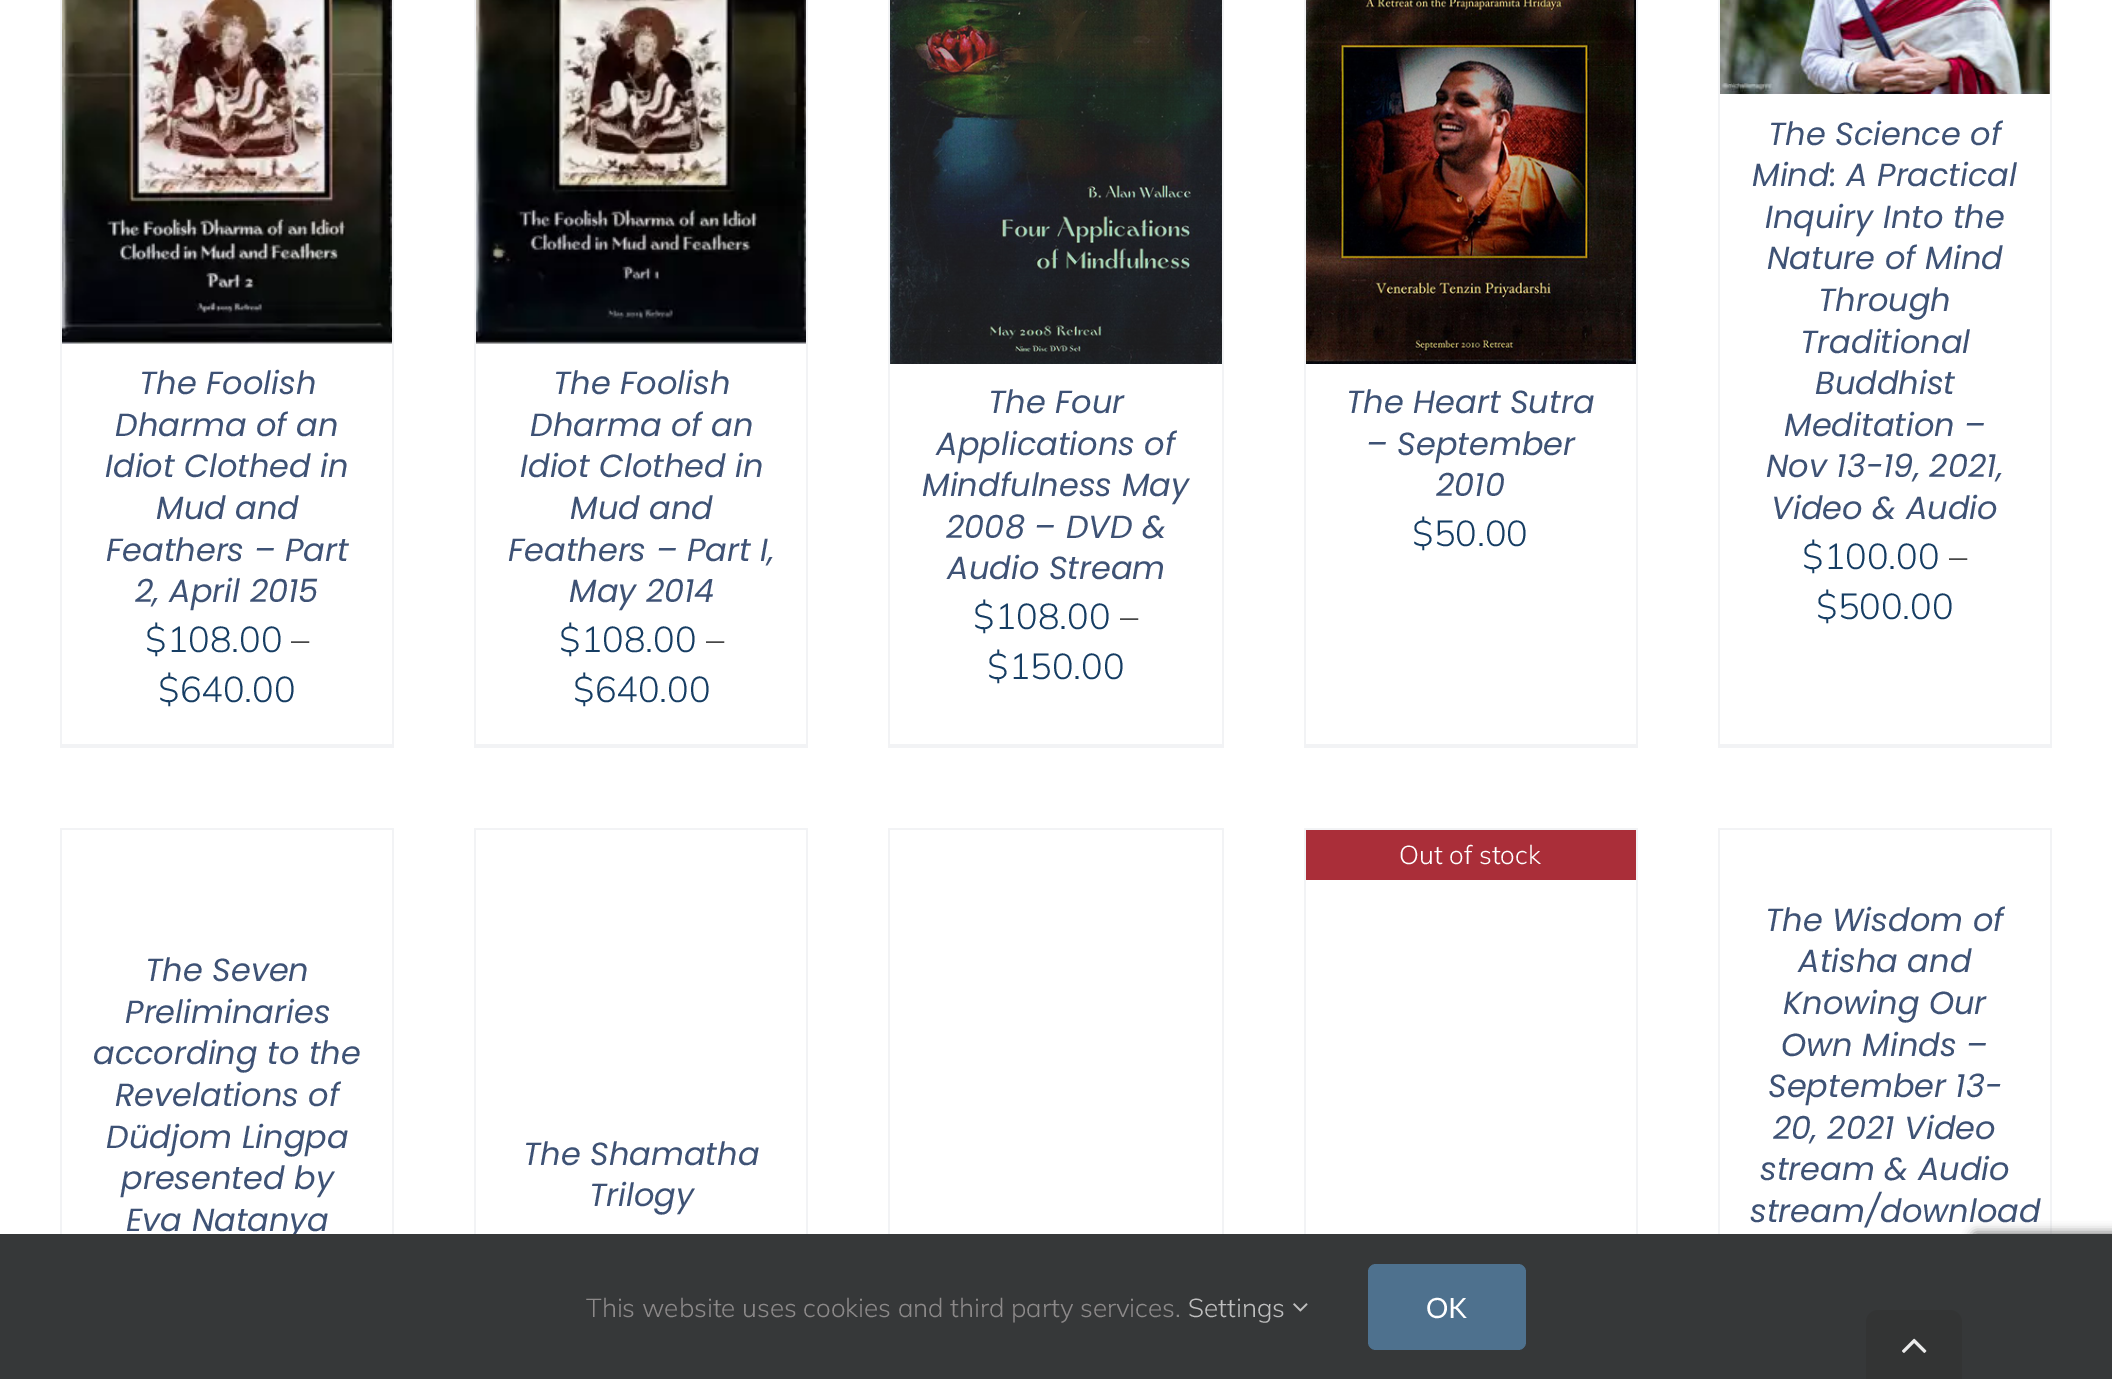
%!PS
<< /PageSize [2112 1379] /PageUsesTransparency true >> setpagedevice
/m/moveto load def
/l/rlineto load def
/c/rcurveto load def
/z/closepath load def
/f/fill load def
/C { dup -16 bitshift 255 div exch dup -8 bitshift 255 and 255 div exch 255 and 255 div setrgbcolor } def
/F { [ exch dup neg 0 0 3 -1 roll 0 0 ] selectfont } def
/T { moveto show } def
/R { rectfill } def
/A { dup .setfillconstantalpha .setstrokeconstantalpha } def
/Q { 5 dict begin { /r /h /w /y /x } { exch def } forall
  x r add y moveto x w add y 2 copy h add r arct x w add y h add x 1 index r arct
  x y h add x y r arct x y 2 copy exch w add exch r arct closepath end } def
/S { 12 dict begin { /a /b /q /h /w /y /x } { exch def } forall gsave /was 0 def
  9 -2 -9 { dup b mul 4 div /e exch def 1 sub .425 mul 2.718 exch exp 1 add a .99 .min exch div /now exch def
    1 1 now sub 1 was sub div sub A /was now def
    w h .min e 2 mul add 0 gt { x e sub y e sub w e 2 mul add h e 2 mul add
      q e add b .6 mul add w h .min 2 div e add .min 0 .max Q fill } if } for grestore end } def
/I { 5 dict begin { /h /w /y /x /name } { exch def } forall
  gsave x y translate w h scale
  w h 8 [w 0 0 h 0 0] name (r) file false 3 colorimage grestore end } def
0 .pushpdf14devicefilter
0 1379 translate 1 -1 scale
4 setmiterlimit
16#FFFFFF C
0 0 2112 1379 R
16#F2F3F5 C
392 0 2 748 R
60 744 334 4 R
60 0 2 748 R
(1.rgb) 62 0 330 344 I
/Poppins-Italic 32 F
16#3E5275 C
(The Foolish) 139 394 T
(Dharma of an) 115 436 T
(Idiot Clothed in) 105 477 T
(Mud and) 156 519 T
(Feathers – Part) 106 561 T
(2, April 2015) 135 602 T
/Mulish-Light 36 F
16#163D63 C
($108.00) 145 652 T
16#474747 C
(–) 291 652 T
16#163D63 C
($640.00) 158 702 T
16#F2F3F5 C
806 0 2 748 R
474 744 334 4 R
474 0 2 748 R
(2.rgb) 476 0 330 344 I
/Poppins-Italic 32 F
16#3E5275 C
(The Foolish) 553 394 T
(Dharma of an) 530 436 T
(Idiot Clothed in) 520 477 T
(Mud and) 570 519 T
(Feathers – Part I,) 508 561 T
(May 2014) 569 602 T
/Mulish-Light 36 F
16#163D63 C
($108.00) 559 652 T
16#474747 C
(–) 706 652 T
16#163D63 C
($640.00) 573 702 T
16#F2F3F5 C
1222 0 2 748 R
888 744 336 4 R
888 0 2 748 R
(3.rgb) 890 0 332 364 I
/Poppins-Italic 32 F
16#3E5275 C
(The Four) 988 413 T
(Applications of) 936 455 T
(Mindfulness May) 922 496 T
(2008 – DVD &) 946 538 T
(Audio Stream) 947 579 T
/Mulish-Light 36 F
16#163D63 C
($108.00) 973 629 T
16#474747 C
(–) 1120 629 T
16#163D63 C
($150.00) 987 679 T
16#F2F3F5 C
1636 0 2 748 R
1304 744 334 4 R
1304 0 2 748 R
(4.rgb) 1306 0 330 364 I
/Poppins-Italic 32 F
16#3E5275 C
(The Heart Sutra) 1346 413 T
(– September) 1366 455 T
(2010) 1436 496 T
/Mulish-Light 36 F
16#163D63 C
($50.00) 1412 546 T
16#F2F3F5 C
2050 0 2 748 R
1718 744 334 4 R
1718 0 2 748 R
(5.rgb) 1720 0 330 94 I
/Poppins-Italic 32 F
16#3E5275 C
(The Science of) 1768 145 T
(Mind: A Practical) 1752 186 T
(Inquiry Into the) 1765 228 T
(Nature of Mind) 1767 269 T
(Through) 1818 311 T
(Traditional) 1800 353 T
(Buddhist) 1815 394 T
(Meditation –) 1784 436 T
(Nov 13-19, 2021,) 1766 477 T
(Video & Audio) 1771 519 T
/Mulish-Light 36 F
16#163D63 C
($100.00) 1802 569 T
16#474747 C
(–) 1949 569 T
16#163D63 C
($500.00) 1816 619 T
16#F2F3F5 C
888 828 336 2 R
1222 828 2 406 R
888 828 2 406 R
1304 828 334 2 R
1636 828 2 406 R
1304 828 2 406 R
16#AA2E39 C
1306 830 330 50 R
/Mulish-Light 26 F
16#FFFFFF C
(Out of stock) 1399 864 T
16#F2F3F5 C
60 828 334 2 R
392 828 2 406 R
60 828 2 406 R
/Poppins-Italic 32 F
16#3E5275 C
(The Seven) 145 981 T
(Preliminaries) 125 1023 T
(according to the) 93 1064 T
(Revelations of) 115 1106 T
(Düdjom Lingpa) 106 1148 T
(presented by) 121 1189 T
(Eva Natanya) 126 1231 T
16#F2F3F5 C
474 828 334 2 R
806 828 2 406 R
474 828 2 406 R
16#3E5275 C
(The Shamatha) 523 1165 T
(Trilogy) 589 1206 T
16#F2F3F5 C
1718 828 334 2 R
2050 828 2 406 R
1718 828 2 406 R
16#3E5275 C
(The Wisdom of) 1765 931 T
(Atisha and) 1798 972 T
(Knowing Our) 1783 1014 T
(Own Minds –) 1781 1056 T
(September 13-) 1768 1097 T
(20, 2021 Video) 1773 1139 T
(stream & Audio) 1760 1180 T
(stream/download) 1750 1222 T
16#808080 C
1972 1232 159 120 4 5 1 S
16#363839 C
0 1234 2112 145 R
/Mulish-Light 26 F
16#8C8989 C
(This website uses cookies and third party services.) 586 1317 T
16#BFBFBF C
(Settings) 1188 1317 T
(6.rgb) 1293 1303 15 9 I
16#4E718E C
1368 1264 158 86 8 Q f
/Lato-Regular 28 F
16#FFFFFF C
(OK) 1426 1318 T
16#333434 C
1878 1310 m 72 0 l 6.5 0 12 5.5 12 12 c 0 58 l -96 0 l 0 -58 l 0 -6.5 5.5 -12 12 -12 c z f
(7.rgb) 1902 1338 25 15 I
.poppdf14devicefilter showpage
